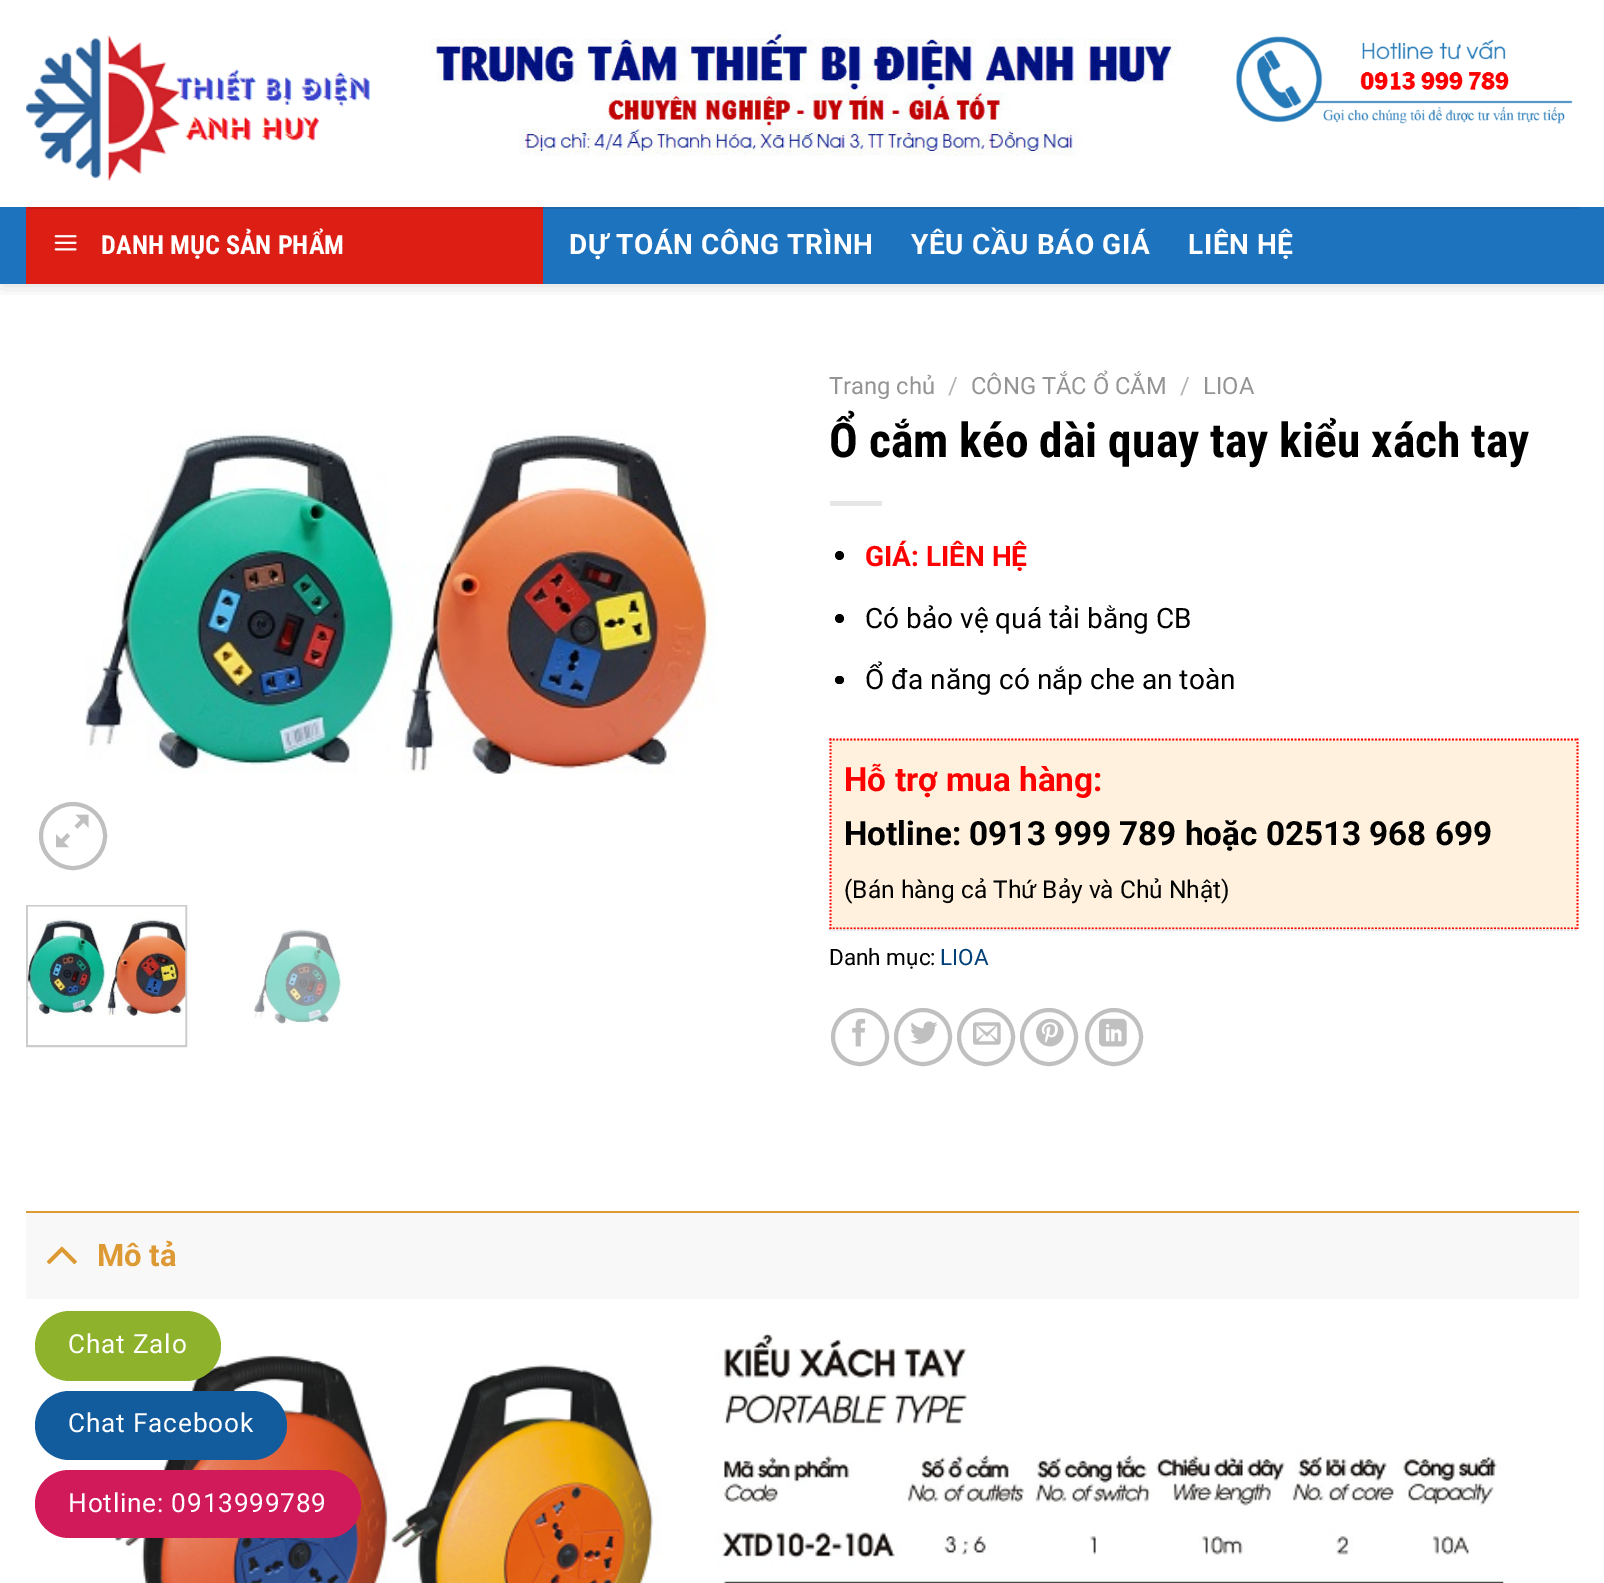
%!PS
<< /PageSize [1604 1583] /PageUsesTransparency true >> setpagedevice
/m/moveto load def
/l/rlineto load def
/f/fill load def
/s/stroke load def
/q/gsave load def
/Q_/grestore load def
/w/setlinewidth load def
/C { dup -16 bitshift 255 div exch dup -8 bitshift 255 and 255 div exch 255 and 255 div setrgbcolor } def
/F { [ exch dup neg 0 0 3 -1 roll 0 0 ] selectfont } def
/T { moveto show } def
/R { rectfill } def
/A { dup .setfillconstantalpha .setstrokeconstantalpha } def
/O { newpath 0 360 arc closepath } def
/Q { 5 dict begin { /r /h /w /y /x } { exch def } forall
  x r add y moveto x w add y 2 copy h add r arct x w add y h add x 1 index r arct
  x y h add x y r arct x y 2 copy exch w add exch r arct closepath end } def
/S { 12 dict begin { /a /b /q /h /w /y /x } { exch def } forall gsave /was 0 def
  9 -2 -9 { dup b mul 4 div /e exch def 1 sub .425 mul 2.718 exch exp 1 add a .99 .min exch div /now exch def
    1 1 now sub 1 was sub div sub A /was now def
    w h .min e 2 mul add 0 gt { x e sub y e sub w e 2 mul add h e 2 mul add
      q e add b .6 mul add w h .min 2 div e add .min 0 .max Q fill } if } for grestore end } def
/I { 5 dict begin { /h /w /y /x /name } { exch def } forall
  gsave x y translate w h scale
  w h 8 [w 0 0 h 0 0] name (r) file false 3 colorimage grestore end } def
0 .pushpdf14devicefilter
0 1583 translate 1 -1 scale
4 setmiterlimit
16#FFFFFF C
0 0 1604 1583 R
q
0 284 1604 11 rectclip
16#000000 C
2 2 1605 283 0 9 .15 S
Q_
(1.rgb) 26 35 345 146 I
(2.rgb) 429 30 749 126 I
(3.rgb) 1236 36 337 88 I
16#1E73BE C
0 207 1604 77 R
16#1B68AB C
543 207 1036 2 R
16#DC1E15 C
26 209 517 75 R
16#C61B13 C
26 207 517 2 R
(4.rgb) 54 235 23 16 I
/RobotoCondensed-Bold 26.25 F
16#FFFFFF C
(DANH MỤC SẢN PHẨM) 101 254 T
/Roboto-Bold 28 F
569 254 m .6 0 (DỰ TOÁN CÔNG TRÌNH) ashow
911 254 m .6 0 (YÊU CẦU BÁO GIÁ) ashow
1188 254 m .6 0 (LIÊN HỆ) ashow
(5.rgb) 85 429 632 345 I
16#C0C0C0 C
4 w
73 836 32 O s
(6.rgb) 56 814 33 34 I
16#CCCCCC C
2 w
27 906 159 140 rectstroke
(7.rgb) 27 906 159 139 I
(8.rgb) 253 929 89 95 I
/Roboto-Regular 23.75 F
16#949494 C
(Trang chủ) 829 394 T
16#B2B2B2 C
(/) 948 394 T
16#949494 C
(CÔNG TẮC Ổ CẮM) 971 394 T
16#B2B2B2 C
(/) 1180 394 T
16#949494 C
(LIOA) 1203 394 T
/RobotoCondensed-Bold 47.6 F
16#000000 C
(Ổ cắm kéo dài quay tay kiểu xách tay) 829 457 T
16#E6E6E6 C
830 501 52 5 R
16#000000 C
839.5 555.5 4.5 O f
/Roboto-Bold 28 F
16#FF0000 C
(GIÁ: LIÊN HỆ) 865 566 T
16#000000 C
839.5 618.5 4.5 O f
/Roboto-Regular 28 F
(Có bảo vệ quá tải bằng CB) 865 628 T
835 676 9 8 4 Q f
(Ổ đa năng có nắp che an toàn) 865 689 T
16#FFF1DD C
830 739 749 190 R
16#FF0000 C
1.8 w
[1.75 1.75] 0 setdash
829.5 739.5 m 749 0 l s
1577.5 738.5 m 0 190.5 l s
829.5 928.5 m 749 0 l s
830.5 738.5 m 0 190.5 l s
/Roboto-Bold 33.25 F
(Hỗ trợ mua hàng:) 844 791 T
16#000000 C
(Hotline: 0913 999 789 hoặc 02513 968 699) 844 845 T
/Roboto-Regular 24.5 F
(\(Bán hàng cả Thứ Bảy và Chủ Nhật\)) 844 898 T
16#DDDDDD C
829.5 930 m 749 0 l s
/Roboto-Regular 22.5 F
16#000000 C
(Danh mục:) 829 965 T
16#013F78 C
(LIOA) 940 965 T
16#C0C0C0 C
4 w
[] 0 setdash
860 1037 27 O s
(9.rgb) 852 1018 14 29 I
923 1037 27 O s
(10.rgb) 910 1021 28 23 I
986 1037 27 O s
(11.rgb) 973 1022 28 23 I
1049 1037 27 O s
(12.rgb) 1036 1018 28 29 I
1114 1037 27 O s
(13.rgb) 1099 1018 28 29 I
16#F8F8F8 C
26 1213 1553 86 R
16#DD9933 C
26 1211 1553 2 R
(14.rgb) 47 1246 30 19 I
/Roboto-Bold 31 F
(Mô tả) 97 1266 T
(15.rgb) 115 1333 1389 250 I
16#8EB22B C
35 1311 186 70 35 Q f
/Roboto-Regular 26.25 F
16#FFFFFF C
68 1353 m .8 0 (Chat Zalo) ashow
16#125C9E C
35 1391 252 69 34.5 Q f
16#FFFFFF C
68 1432 m .8 0 (Chat Facebook) ashow
16#D11A59 C
35 1470 326 68 34 Q f
16#FFFFFF C
68 1512 m .8 0 (Hotline: 0913999789) ashow
.poppdf14devicefilter showpage
